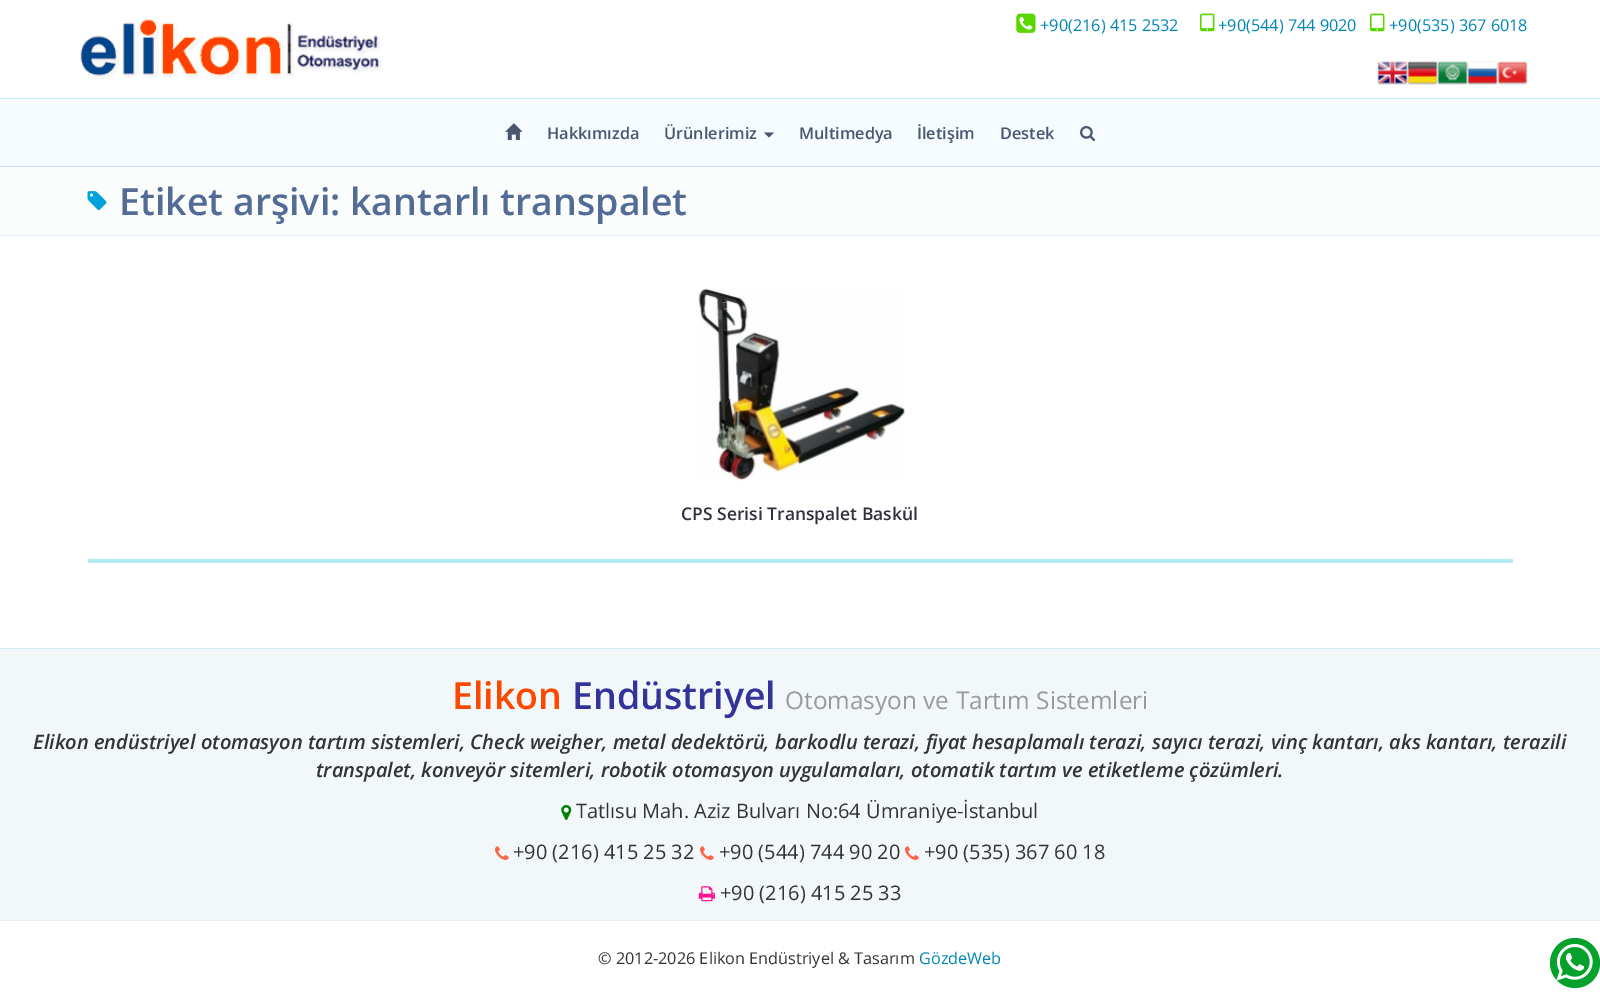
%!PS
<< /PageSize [1600 1000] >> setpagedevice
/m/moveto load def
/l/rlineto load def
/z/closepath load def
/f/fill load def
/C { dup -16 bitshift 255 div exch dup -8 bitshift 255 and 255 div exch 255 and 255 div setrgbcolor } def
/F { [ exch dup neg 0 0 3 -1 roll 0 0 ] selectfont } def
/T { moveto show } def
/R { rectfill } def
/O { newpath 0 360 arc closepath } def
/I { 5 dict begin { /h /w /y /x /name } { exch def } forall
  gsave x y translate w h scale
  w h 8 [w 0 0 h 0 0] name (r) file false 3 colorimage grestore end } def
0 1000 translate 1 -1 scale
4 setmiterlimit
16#FFFFFF C
0 0 1600 1000 R
(1.rgb) 80 17 303 62 I
(2.rgb) 1016 13 20 20 I
/OpenSans-Regular 16.25 F
16#0086B3 C
(+90\(216\) 415 2532) 1040 31 T
(3.rgb) 1200 13 15 19 I
(+90\(544\) 744 9020) 1218 31 T
(3.rgb) 1370 13 15 19 I
(+90\(535\) 367 6018) 1389 31 T
(4.rgb) 1377 61 31 24 I
(5.rgb) 1407 61 31 24 I
(6.rgb) 1437 61 31 24 I
(7.rgb) 1467 61 31 24 I
(8.rgb) 1497 61 31 24 I
16#F6FBFF C
0 99 1600 69 R
16#C6E9FD C
0 98 1600 1 R
16#D0DCF9 C
0 166 1600 1 R
(9.rgb) 505 123 18 17 I
/OpenSans-SemiBold 16.25 F
16#48576F C
(Hakkımızda) 547 139 T
(Ürünlerimiz) 664 139 T
764 132.5 m 10 0 l -5 5 l z f
(Multimedya) 799 139 T
(İletişim) 917 139 T
(Destek) 1000 139 T
(10.rgb) 1080 126 16 15 I
16#FBFDFD C
0 168 1600 67 R
16#E4EEFF C
0 235 1600 1 R
(11.rgb) 87 191 20 20 I
/OpenSans-SemiBold 37.5 F
16#526C95 C
(Etiket arşivi: kantarlı transpalet) 119 215 T
16#B3EBF4 C
88 559 1425 4 R
(12.rgb) 698 288 207 193 I
/OpenSans-SemiBold 17.5 F
16#313140 C
(CPS Serisi Transpalet Baskül) 681 520 T
16#F2F7F9 C
0 649 1600 271 R
16#D6EDF5 C
0 648 1600 1 R
/OpenSans-SemiBold 37.5 F
16#FC4800 C
(Elikon) 452 709 T
16#333399 C
(Endüstriyel) 572 709 T
/OpenSans-Regular 24.4 F
16#999999 C
(Otomasyon ve Tartım Sistemleri) 785 709 T
/OpenSans-SemiBoldItalic 20 F
16#333333 C
(Elikon endüstriyel otomasyon tartım sistemleri, Check weigher, metal dedektörü, barkodlu terazi, fiyat hesaplamalı terazi, sayıcı terazi, vinç kantarı, aks kantarı, terazili) 33 749 T
(transpalet, konveyör sitemleri, robotik otomasyon uygulamaları, otomatik tartım ve etiketleme çözümleri.) 316 777 T
(13.rgb) 561 805 11 15 I
/OpenSans-Regular 20 F
(Tatlısu Mah. Aziz Bulvarı No:64 Ümraniye-İstanbul) 576 818 T
(14.rgb) 495 846 14 14 I
(+90 \(216\) 415 25 32) 513 859 T
(14.rgb) 700 846 14 14 I
(+90 \(544\) 744 90 20) 719 859 T
(14.rgb) 905 846 14 14 I
(+90 \(535\) 367 60 18) 924 859 T
(15.rgb) 698 886 17 16 I
(+90 \(216\) 415 25 33) 720 900 T
16#EEEEEE C
0 920 1600 1 R
/OpenSans-Regular 16.25 F
16#333333 C
(© 2012-2026 Elikon Endüstriyel & Tasarım) 598 964 T
16#0086B3 C
(GözdeWeb) 919 964 T
16#04A22C C
1575 963 25 O f
(16.rgb) 1556 944 37 37 I
showpage
